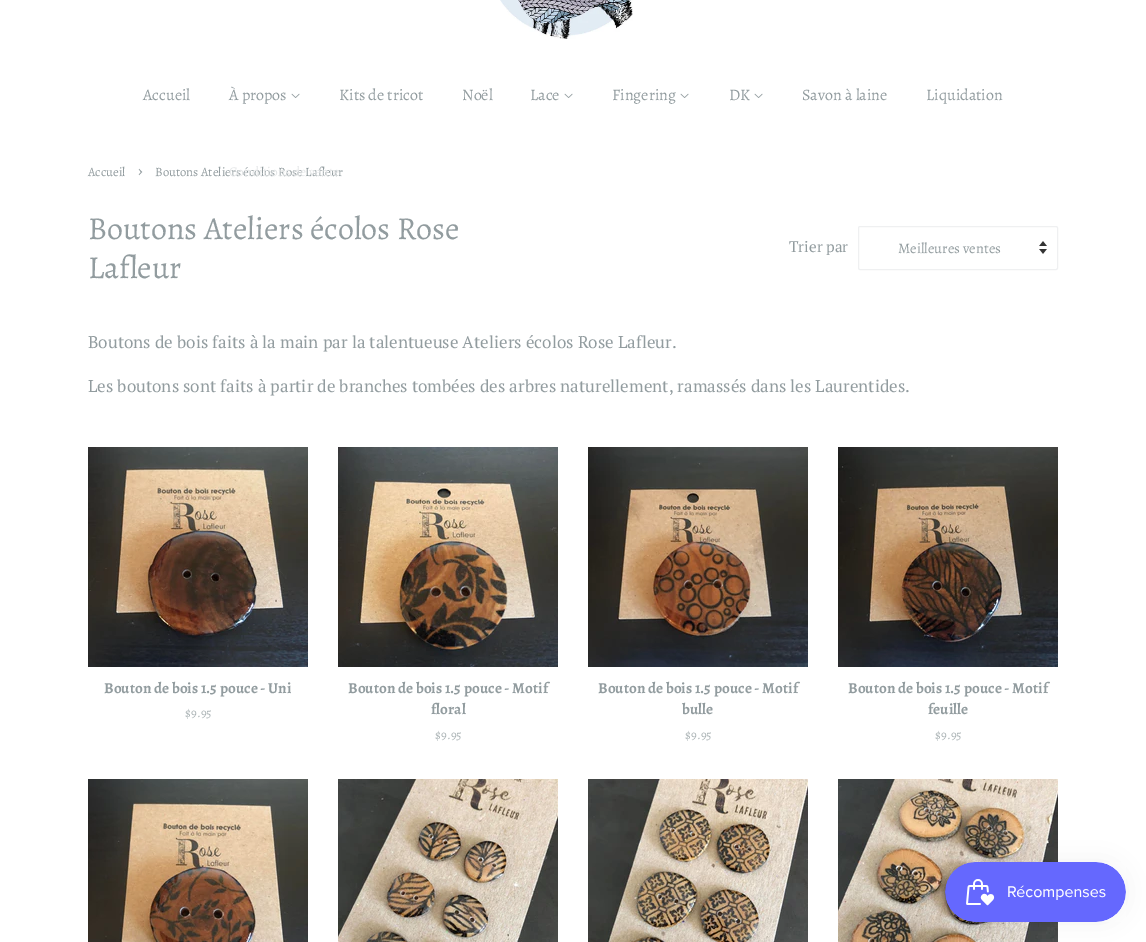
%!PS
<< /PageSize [1146 942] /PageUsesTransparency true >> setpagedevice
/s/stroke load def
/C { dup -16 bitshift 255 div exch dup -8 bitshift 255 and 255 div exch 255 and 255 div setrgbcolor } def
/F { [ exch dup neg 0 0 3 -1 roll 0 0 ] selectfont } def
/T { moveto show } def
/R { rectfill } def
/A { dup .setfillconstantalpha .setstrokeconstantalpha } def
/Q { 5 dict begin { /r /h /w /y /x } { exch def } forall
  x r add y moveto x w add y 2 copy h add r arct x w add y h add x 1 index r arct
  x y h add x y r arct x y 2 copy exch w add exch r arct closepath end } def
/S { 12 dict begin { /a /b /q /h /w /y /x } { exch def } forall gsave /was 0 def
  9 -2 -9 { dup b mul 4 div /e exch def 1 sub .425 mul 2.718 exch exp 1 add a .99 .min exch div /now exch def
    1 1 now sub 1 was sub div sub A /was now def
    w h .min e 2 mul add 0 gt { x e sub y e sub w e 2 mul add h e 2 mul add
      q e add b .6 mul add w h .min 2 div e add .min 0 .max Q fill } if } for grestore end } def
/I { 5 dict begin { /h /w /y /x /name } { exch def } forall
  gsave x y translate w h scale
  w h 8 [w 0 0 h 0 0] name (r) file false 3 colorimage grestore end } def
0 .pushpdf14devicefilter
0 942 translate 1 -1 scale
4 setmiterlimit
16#FFFFFF C
0 0 1146 942 R
(1.rgb) 500 0 133 39 I
/Alegreya-Regular 16 F
16#929C9F C
(Accueil) 143 100 T
(À propos) 229 100 T
(2.rgb) 291 93 9 5 I
/Alegreya-Regular 12.75 F
(Boutons Ateliers écolos Rose Lafleur) 155 176 T
/Alegreya-Regular 13.5 F
16#E5E7E8 C
(Conditions de vente) 229 176 T
/Alegreya-Regular 16 F
16#929C9F C
(Kits de tricot) 339 100 T
(Noël) 462 100 T
(Lace) 530 100 T
(2.rgb) 564 93 9 5 I
(Fingering) 612 100 T
(2.rgb) 680 93 9 5 I
(DK) 729 100 T
(2.rgb) 754 93 9 5 I
(Savon à laine) 802 100 T
(Liquidation) 926 100 T
/Alegreya-Regular 12.75 F
(Accueil) 88 176 T
/Alegreya-Regular 18 F
(›) 138 176 T
/Alegreya-Regular 32 F
(Boutons Ateliers écolos Rose) 88 239 T
(Lafleur) 88 278 T
/PTSerif-Regular 15.25 F
(Trier par) 789 252 T
(3.rgb) 1039 241 8 13 I
16#EFF0F1 C
858.5 226.5 199 43 1.5 Q s
/Alegreya-Regular 14.5 F
16#929C9F C
(Meilleures ventes) 898 253 T
/PTSerif-Regular 17 F
(Boutons de bois faits à la main par la talentueuse Ateliers écolos Rose Lafleur.) 88 348 T
(Les boutons sont faits à partir de branches tombées des arbres naturellement, ramassés dans les Laurentides.) 88 392 T
(4.rgb) 88 447 220 220 I
/Alegreya-Bold 15.25 F
(Bouton de bois 1.5 pouce - Uni) 104 693 T
/Alegreya-Regular 12.75 F
16#ADB5B7 C
($9.95) 185 717 T
(5.rgb) 338 447 220 220 I
/Alegreya-Bold 15.25 F
16#929C9F C
(Bouton de bois 1.5 pouce - Motif) 348 693 T
(floral) 431 714 T
/Alegreya-Regular 12.75 F
16#ADB5B7 C
($9.95) 435 739 T
(6.rgb) 588 447 220 220 I
/Alegreya-Bold 15.25 F
16#929C9F C
(Bouton de bois 1.5 pouce - Motif) 598 693 T
(bulle) 682 714 T
/Alegreya-Regular 12.75 F
16#ADB5B7 C
($9.95) 685 739 T
(7.rgb) 838 447 220 220 I
/Alegreya-Bold 15.25 F
16#929C9F C
(Bouton de bois 1.5 pouce - Motif) 848 693 T
(feuille) 928 714 T
/Alegreya-Regular 12.75 F
16#ADB5B7 C
($9.95) 935 739 T
(8.rgb) 88 779 220 163 I
(9.rgb) 338 779 220 163 I
(10.rgb) 588 779 220 163 I
(11.rgb) 838 779 220 163 I
16#000000 C
945 862 181 60 30 12.5 .05 S
(12.rgb) 945 862 181 60 I
.poppdf14devicefilter showpage
